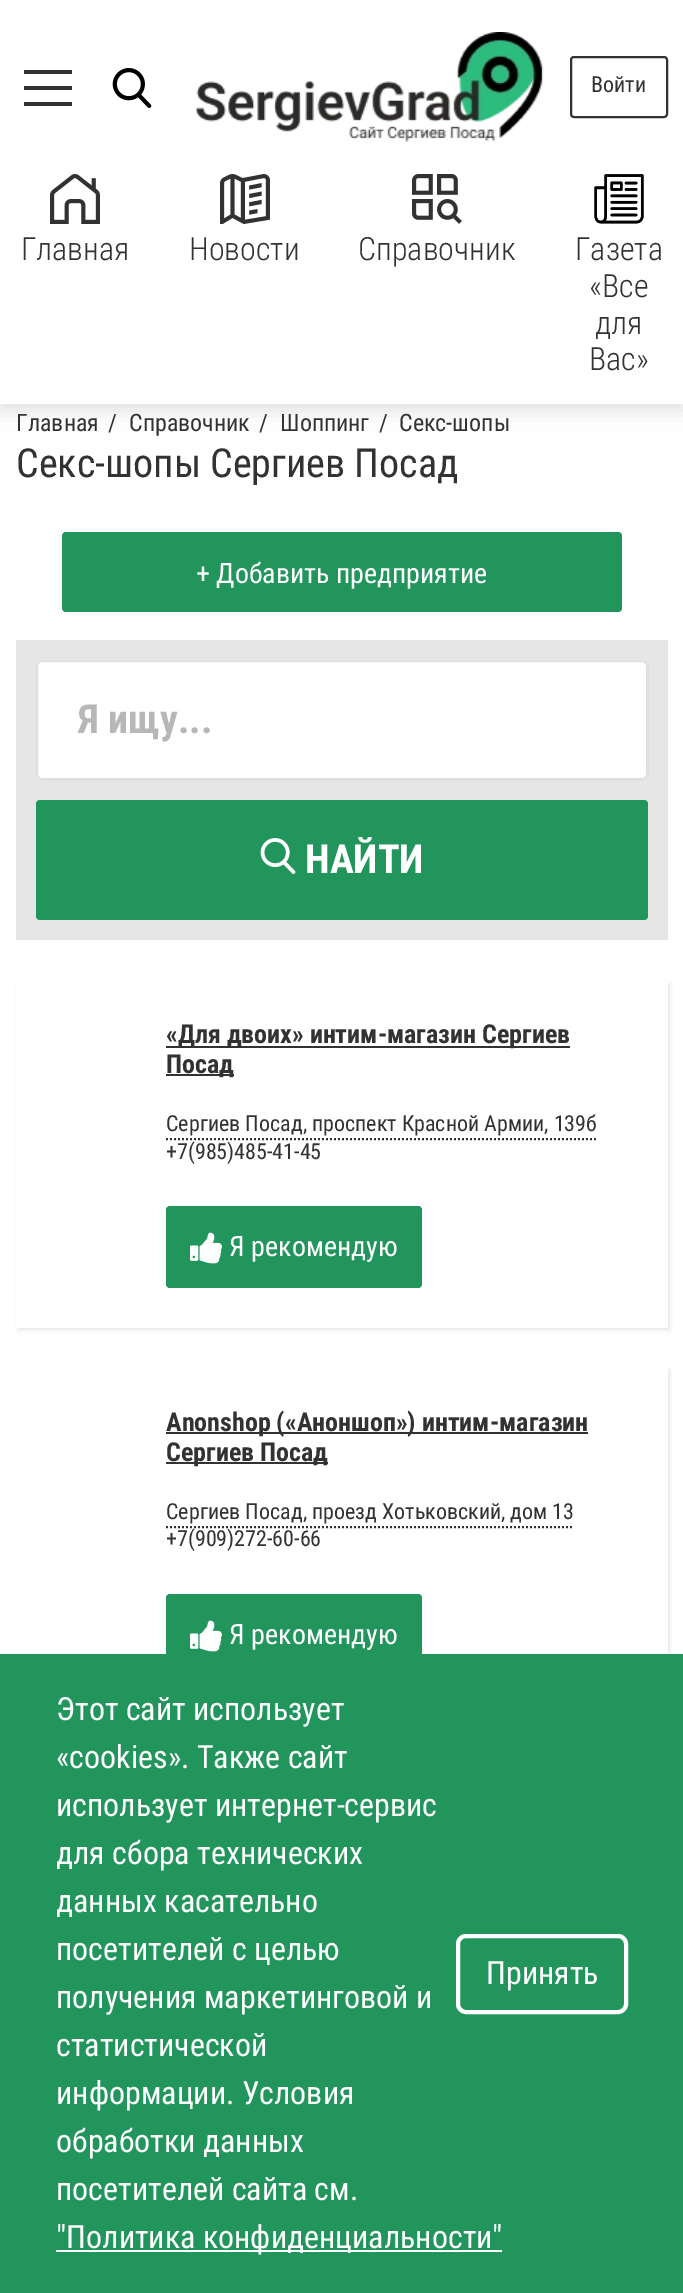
%!PS
<< /PageSize [683 2293] /PageUsesTransparency true >> setpagedevice
/m/moveto load def
/l/rlineto load def
/z/closepath load def
/f/fill load def
/s/stroke load def
/q/gsave load def
/Q_/grestore load def
/w/setlinewidth load def
/C { dup -16 bitshift 255 div exch dup -8 bitshift 255 and 255 div exch 255 and 255 div setrgbcolor } def
/F { [ exch dup neg 0 0 3 -1 roll 0 0 ] selectfont } def
/T { moveto show } def
/R { rectfill } def
/A { dup .setfillconstantalpha .setstrokeconstantalpha } def
/Q { 5 dict begin { /r /h /w /y /x } { exch def } forall
  x r add y moveto x w add y 2 copy h add r arct x w add y h add x 1 index r arct
  x y h add x y r arct x y 2 copy exch w add exch r arct closepath end } def
/S { 12 dict begin { /a /b /q /h /w /y /x } { exch def } forall gsave /was 0 def
  9 -2 -9 { dup b mul 4 div /e exch def 1 sub .425 mul 2.718 exch exp 1 add a .99 .min exch div /now exch def
    1 1 now sub 1 was sub div sub A /was now def
    w h .min e 2 mul add 0 gt { x e sub y e sub w e 2 mul add h e 2 mul add
      q e add b .6 mul add w h .min 2 div e add .min 0 .max Q fill } if } for grestore end } def
/I { 5 dict begin { /h /w /y /x /name } { exch def } forall
  gsave x y translate w h scale
  w h 8 [w 0 0 h 0 0] name (r) file false 3 colorimage grestore end } def
0 .pushpdf14devicefilter
0 2293 translate 1 -1 scale
4 setmiterlimit
16#FFFFFF C
0 0 683 2293 R
16#4E4E4E C
0 6 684 404 0 10 .2 S
16#FFFFFF C
0 0 683 404 R
16#323232 C
24 86 48 4 R
24 70 48 4 R
24 102 48 4 R
(1.rgb) 112 68 40 40 I
(2.rgb) 195 32 349 110 I
2 w
571 57 96 60 3 Q s
/RobotoCondensed-Regular 22 F
(Войти) 591 92 T
(3.rgb) 50 174 50 50 I
/RobotoCondensed-Light 32 F
(Главная) 21 260 T
(4.rgb) 220 174 50 50 I
(Новости) 189 260 T
(5.rgb) 412 174 50 50 I
(Справочник) 358 260 T
(6.rgb) 594 174 50 50 I
(Газета) 575 260 T
(«Все) 589 297 T
(для) 595 334 T
(Вас») 589 370 T
/RobotoCondensed-Regular 24 F
(Главная) 16 431 T
(/) 108 431 T
(Справочник) 129 431 T
(/) 259 431 T
(Шоппинг) 280 431 T
(/) 379 431 T
(Секс-шопы) 399 431 T
/RobotoCondensed-Regular 40 F
(Секс-шопы Сергиев Посад) 16 477 T
16#22955D C
62 532 560 80 4 Q f
/RobotoCondensed-Regular 28 F
16#FFFFFF C
(+ Добавить предприятие) 196 583 T
16#E6E6E6 C
16 640 652 300 R
16#FFFFFF C
36 660 612 120 6 Q f
0.15 A
16#323232 C
37 661 610 118 5 Q s
/RobotoCondensed-Bold 40 F
1 A
16#B7B7B7 C
(Я ищу...) 78 733 T
16#22955D C
36 800 612 120 4 Q f
(7.rgb) 260 838 36 36 I
16#FFFFFF C
(НАЙТИ) 305 873 T
q
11 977 m 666 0 l 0 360 l -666 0 l z 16 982 m 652 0 l 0 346 l -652 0 l z eoclip newpath
16#5A5A5A C
18 984 652 346 0 2 .15 S
Q_
16#323232 C
166 1046 404 2 R
/RobotoCondensed-Bold 26 F
(«Для двоих» интим-магазин Сергиев) 166 1043 T
166 1074 68 2 R
(Посад) 166 1073 T
[2 2] 0 setdash
166 1139 m 430 0 l s
/RobotoCondensed-Regular 22 F
(Сергиев Посад, проспект Красной Армии, 139б) 166 1131 T
(+7\(985\)485-41-45) 166 1159 T
16#22955D C
166 1206 256 82 4 Q f
(8.rgb) 190 1232 32 32 I
/RobotoCondensed-Regular 28 F
16#FFFFFF C
(Я рекомендую) 229 1256 T
q
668 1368 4 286 rectclip
16#5A5A5A C
18 1370 652 348 0 2 .15 S
Q_
16#323232 C
166 1432 422 2 R
/RobotoCondensed-Bold 26 F
(Anonshop \(«Аноншоп»\) интим-магазин) 166 1431 T
166 1462 162 2 R
(Сергиев Посад) 166 1461 T
166 1527 m 408 0 l s
/RobotoCondensed-Regular 22 F
(Сергиев Посад, проезд Хотьковский, дом 13) 166 1519 T
(+7\(909\)272-60-66) 166 1546 T
16#22955D C
166 1594 256 82 4 Q f
(8.rgb) 190 1620 32 32 I
/RobotoCondensed-Regular 28 F
16#FFFFFF C
(Я рекомендую) 229 1644 T
16#22955D C
0 1654 683 639 R
/RobotoCondensed-Regular 32 F
16#FFFFFF C
(Этот сайт использует) 56 1720 T
(«cookies». Также сайт) 56 1768 T
(использует интернет-сервис) 56 1816 T
(для сбора технических) 56 1864 T
(данных касательно) 56 1912 T
(посетителей с целью) 56 1960 T
(получения маркетинговой и) 56 2008 T
(статистической) 56 2056 T
(информации. Условия) 56 2104 T
(обработки данных) 56 2152 T
(посетителей сайта см.) 56 2200 T
56 2250 446 2 R
("Политика конфиденциальности") 56 2248 T
4 w
[] 0 setdash
458 1936 168 76 8 Q s
(Принять) 486 1984 T
.poppdf14devicefilter showpage
